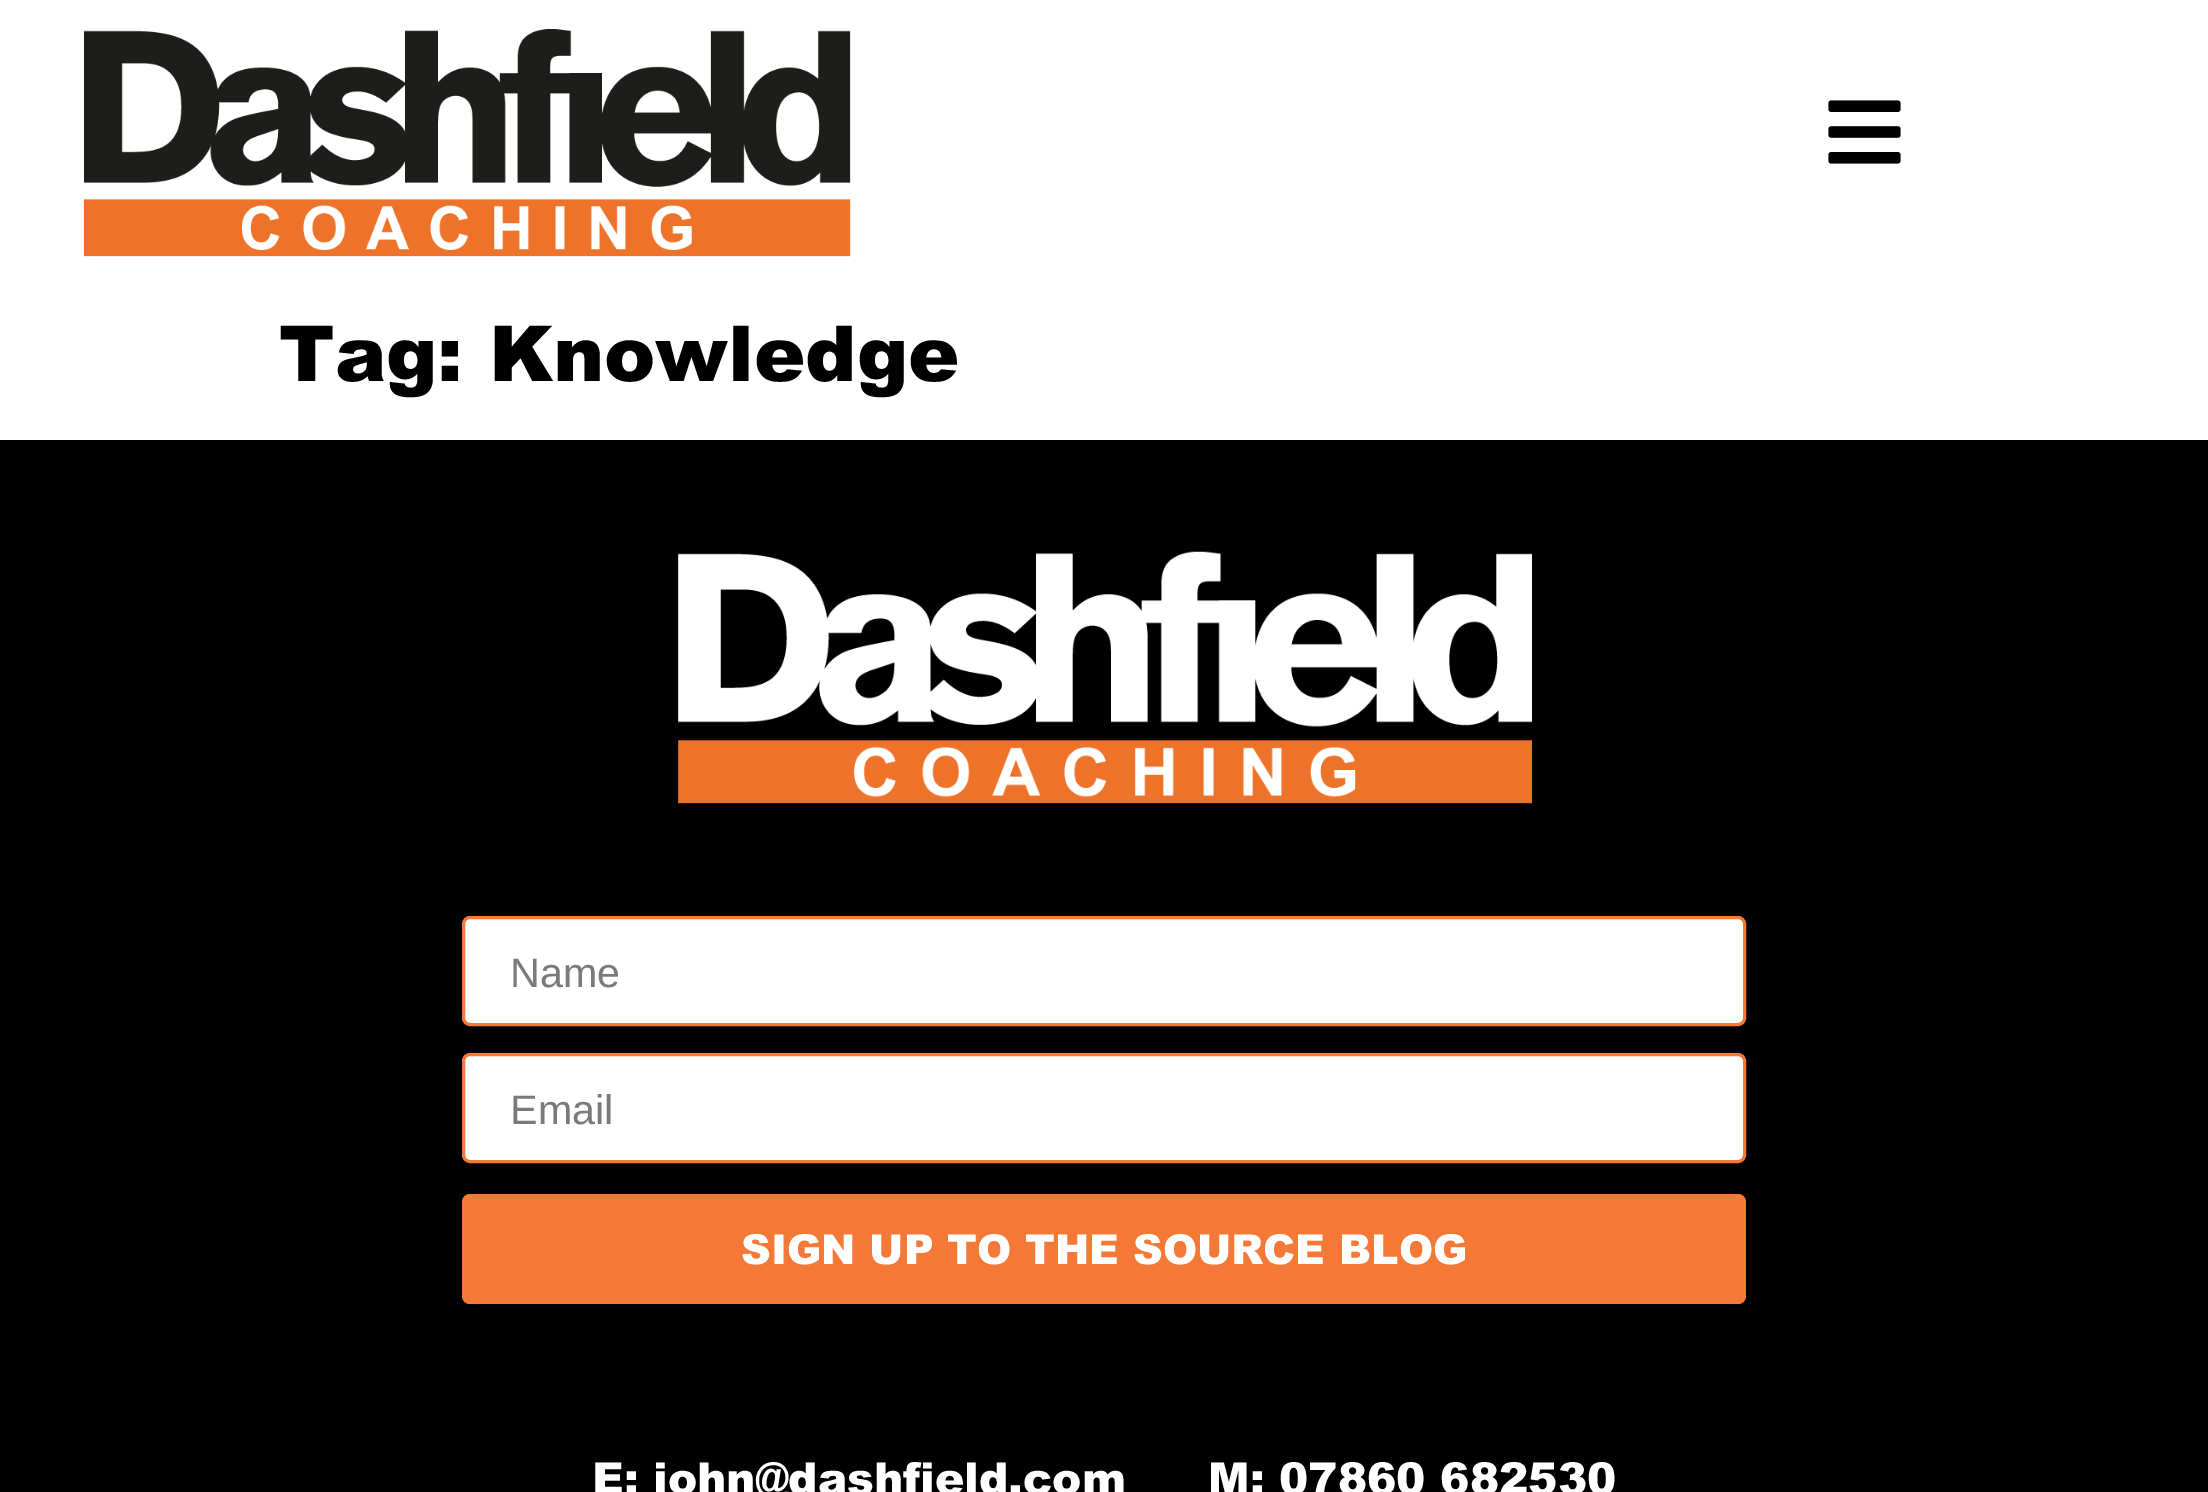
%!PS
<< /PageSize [2208 1492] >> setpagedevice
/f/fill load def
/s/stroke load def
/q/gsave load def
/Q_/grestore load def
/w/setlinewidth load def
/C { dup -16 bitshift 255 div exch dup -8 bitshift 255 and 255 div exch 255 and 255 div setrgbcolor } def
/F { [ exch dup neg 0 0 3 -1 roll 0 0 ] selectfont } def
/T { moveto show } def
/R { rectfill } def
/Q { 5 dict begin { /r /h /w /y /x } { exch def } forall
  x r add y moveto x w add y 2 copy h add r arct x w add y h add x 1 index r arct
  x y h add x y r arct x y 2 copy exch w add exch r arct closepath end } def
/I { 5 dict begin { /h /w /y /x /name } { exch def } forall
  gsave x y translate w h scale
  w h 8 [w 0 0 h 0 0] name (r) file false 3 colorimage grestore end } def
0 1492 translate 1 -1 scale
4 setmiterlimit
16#FFFFFF C
0 0 2208 1492 R
(1.rgb) 84 29 767 228 I
(2.rgb) 1828 100 73 64 I
/Arial-Black 77 F
16#000000 C
(Tag: Knowledge) 279 381 T
0 440 2208 1052 R
(3.rgb) 678 551 854 253 I
16#FFFFFF C
463.5 917.5 1281 107 6.5 Q q f Q_
16#F47936 C
3 w
s
/LiberationSans-Regular 41.25 F
16#797A7C C
(Name) 510 987 T
16#FFFFFF C
463.5 1054.5 1281 107 6.5 Q q f Q_
16#F47936 C
s
16#797A7C C
(Email) 510 1124 T
16#F47936 C
462 1194 1284 110 8 Q f
/Arial-Black 41.25 F
16#FFFFFF C
(SIGN UP TO THE SOURCE BLOG) 741 1264 T
/Arial-Black 44 F
(E: john@dashfield.com) 592 1494 T
(M: 07860 682530) 1208 1494 T
showpage
